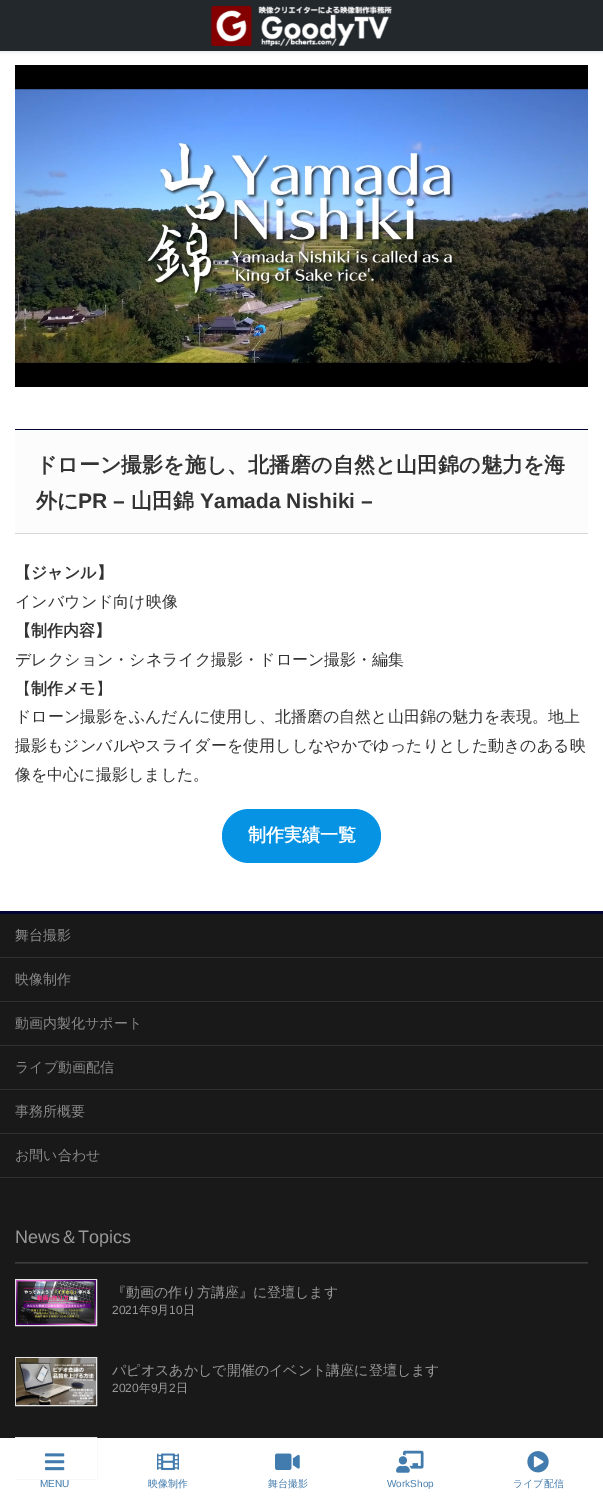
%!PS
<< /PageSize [603 1500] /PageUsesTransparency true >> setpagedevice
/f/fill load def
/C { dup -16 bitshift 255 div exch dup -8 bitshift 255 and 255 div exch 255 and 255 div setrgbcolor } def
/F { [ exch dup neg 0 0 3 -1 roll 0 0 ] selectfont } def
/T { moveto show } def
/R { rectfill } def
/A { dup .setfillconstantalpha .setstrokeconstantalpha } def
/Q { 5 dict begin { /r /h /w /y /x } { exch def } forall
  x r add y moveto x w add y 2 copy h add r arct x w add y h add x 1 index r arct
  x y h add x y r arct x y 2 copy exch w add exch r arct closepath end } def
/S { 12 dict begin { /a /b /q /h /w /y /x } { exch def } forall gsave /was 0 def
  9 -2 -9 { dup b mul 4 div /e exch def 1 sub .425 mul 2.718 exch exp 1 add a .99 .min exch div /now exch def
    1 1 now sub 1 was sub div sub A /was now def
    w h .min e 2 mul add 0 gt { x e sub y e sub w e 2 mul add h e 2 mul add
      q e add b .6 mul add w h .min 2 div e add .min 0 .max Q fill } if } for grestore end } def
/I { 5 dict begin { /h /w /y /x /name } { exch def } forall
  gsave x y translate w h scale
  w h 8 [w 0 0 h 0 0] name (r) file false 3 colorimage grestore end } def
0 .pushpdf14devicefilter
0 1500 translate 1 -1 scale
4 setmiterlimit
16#FFFFFF C
0 0 603 1500 R
16#000000 C
0 1 603 51 0 1.5 .1 S
16#23282D C
0 0 603 51 R
(1.rgb) 210 6 183 40 I
(2.rgb) 15 65 573 322 I
16#FCFCFC C
15 430 573 103 R
16#000533 C
15 429 573 1 R
16#D6D6D6 C
15 533 573 1 R
/WenQuanYiZenHei-Bold 21 F
16#333333 C
(ドローン撮影を施し、北播磨の自然と山田錦の魅力を海) 36 472 T
(外に) 36 508 T
/LiberationSans-Bold 21 F
(PR –) 78 508 T
/WenQuanYiZenHei-Bold 21 F
(山田錦) 131 508 T
/LiberationSans-Bold 21 F
(Yamada Nishiki –) 200 508 T
/WenQuanYiZenHei-Bold 16 F
(【ジャンル】) 15 578 T
/WenQuanYiZenHei-Medium 16 F
(インバウンド向け映像) 15 607 T
/WenQuanYiZenHei-Bold 16 F
(【制作内容】) 15 636 T
/WenQuanYiZenHei-Medium 16 F
(デレクション・シネライク撮影・ドローン撮影・編集) 15 665 T
(【) 15 694 T
/WenQuanYiZenHei-Bold 16 F
(制作メモ) 31 694 T
/WenQuanYiZenHei-Medium 16 F
(】) 96 694 T
(ドローン撮影をふんだんに使用し、北播磨の自然と山田錦の魅力を表現。地上) 15 722 T
(撮影もジンバルやスライダーを使用ししなやかでゆったりとした動きのある映) 15 751 T
(像を中心に撮影しました。) 15 780 T
16#0693E3 C
222 809 159 54 27 Q f
/WenQuanYiZenHei-Bold 18 F
16#FFFFFF C
(制作実績一覧) 248 841 T
16#191919 C
0 914 603 524 R
16#000533 C
0 911 603 3 R
16#303030 C
0 1177 603 1 R
0 957 603 1 R
/WenQuanYiZenHei-Medium 14 F
16#888888 C
(舞台撮影) 15 940 T
16#303030 C
0 1001 603 1 R
16#888888 C
(映像制作) 15 984 T
16#303030 C
0 1045 603 1 R
16#888888 C
(動画内製化サポート) 15 1028 T
16#303030 C
0 1089 603 1 R
16#888888 C
(ライブ動画配信) 15 1072 T
16#303030 C
0 1133 603 1 R
16#888888 C
(事務所概要) 15 1116 T
(お問い合わせ) 15 1160 T
16#303030 C
15 1263 573 1 R
/LiberationSans-Regular 18 F
16#999999 C
(News) 15 1243 T
/WenQuanYiZenHei-Medium 18 F
(＆) 60 1243 T
/LiberationSans-Regular 18 F
(Topics) 78 1243 T
16#3C3C3C C
15 1262 573 1 R
16#E5E5E5 C
15.5 1279.5 81 46 rectstroke
(3.rgb) 16 1280 80 45 I
/WenQuanYiZenHei-Medium 14 F
16#999999 C
(『動画の作り方講座』に登壇します) 112 1297 T
/LiberationSans-Regular 12 F
(2021) 112 1314 T
/WenQuanYiZenHei-Medium 12 F
(年) 139 1314 T
/LiberationSans-Regular 12 F
(9) 151 1314 T
/WenQuanYiZenHei-Medium 12 F
(月) 157 1314 T
/LiberationSans-Regular 12 F
(10) 169 1314 T
/WenQuanYiZenHei-Medium 12 F
(日) 183 1314 T
16#E5E5E5 C
15.5 1357.5 81 48 rectstroke
(4.rgb) 16 1358 80 47 I
/WenQuanYiZenHei-Medium 14 F
16#999999 C
(パピオスあかしで開催のイベント講座に登壇します) 112 1375 T
/LiberationSans-Regular 12 F
(2020) 112 1392 T
/WenQuanYiZenHei-Medium 12 F
(年) 139 1392 T
/LiberationSans-Regular 12 F
(9) 151 1392 T
/WenQuanYiZenHei-Medium 12 F
(月) 157 1392 T
/LiberationSans-Regular 12 F
(2) 169 1392 T
/WenQuanYiZenHei-Medium 12 F
(日) 176 1392 T
16#E5E5E5 C
15.5 1437.5 81 41 rectstroke
16#FFFFFF C
15 1438 82 41 R
(5.rgb) 45 1453 20 18 I
/LiberationSans-Regular 10 F
16#437CAD C
(MENU) 40 1487 T
(6.rgb) 157 1453 22 17 I
/WenQuanYiZenHei-Medium 10 F
(映像制作) 148 1487 T
(7.rgb) 275 1453 25 17 I
(舞台撮影) 268 1487 T
(8.rgb) 396 1450 28 23 I
/LiberationSans-Regular 10 F
(WorkShop) 387 1487 T
(9.rgb) 527 1451 22 22 I
/WenQuanYiZenHei-Medium 10 F
(ライブ配信) 513 1487 T
.poppdf14devicefilter showpage
